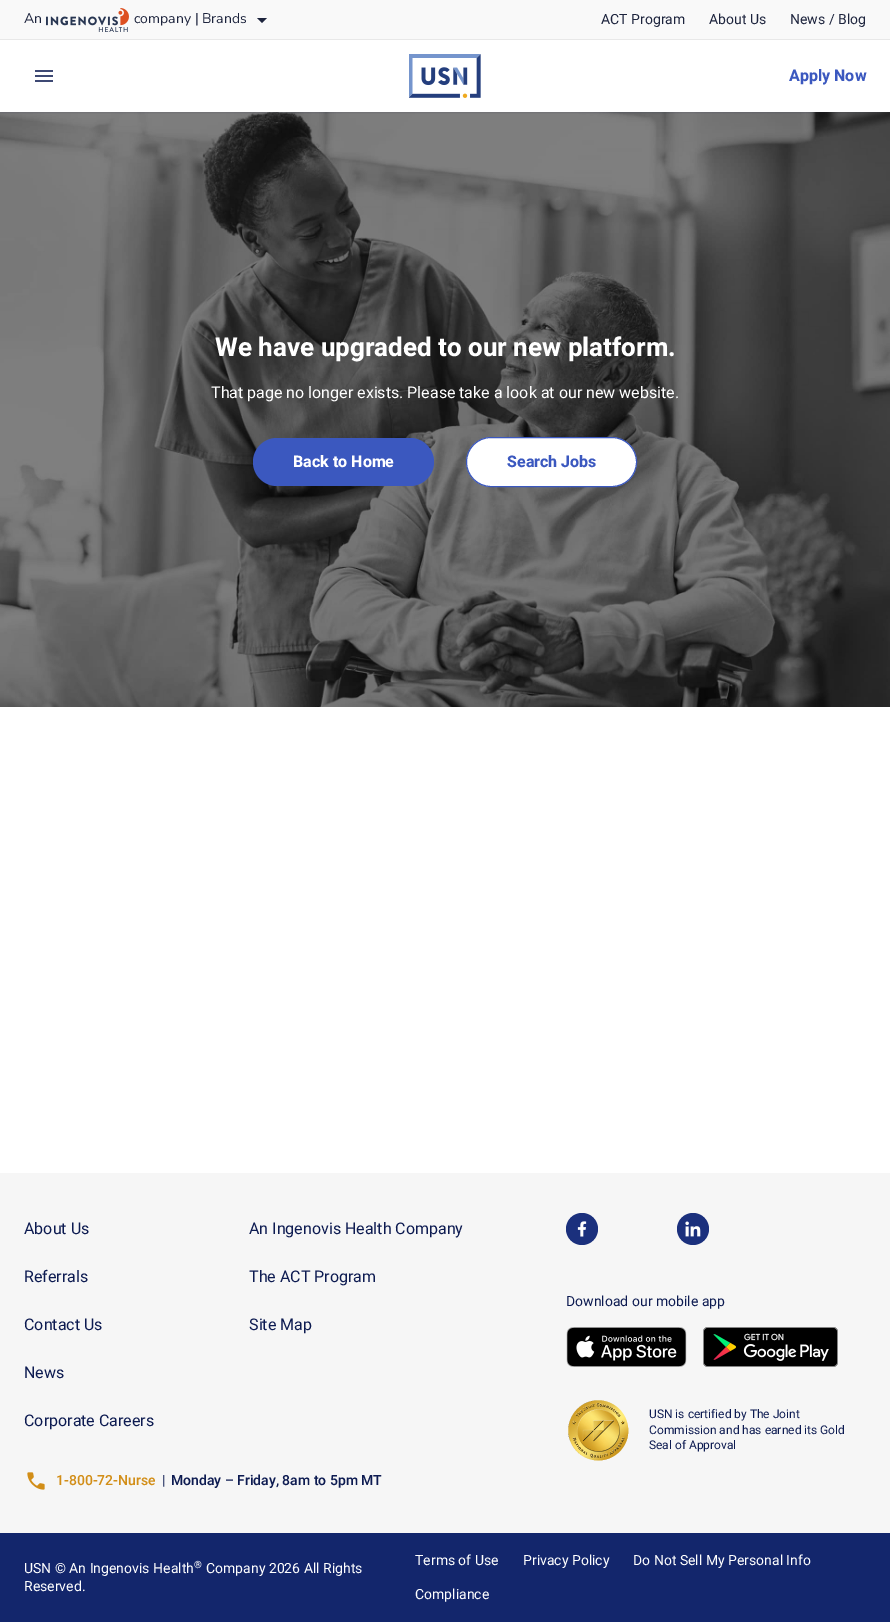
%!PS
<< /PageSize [890 1622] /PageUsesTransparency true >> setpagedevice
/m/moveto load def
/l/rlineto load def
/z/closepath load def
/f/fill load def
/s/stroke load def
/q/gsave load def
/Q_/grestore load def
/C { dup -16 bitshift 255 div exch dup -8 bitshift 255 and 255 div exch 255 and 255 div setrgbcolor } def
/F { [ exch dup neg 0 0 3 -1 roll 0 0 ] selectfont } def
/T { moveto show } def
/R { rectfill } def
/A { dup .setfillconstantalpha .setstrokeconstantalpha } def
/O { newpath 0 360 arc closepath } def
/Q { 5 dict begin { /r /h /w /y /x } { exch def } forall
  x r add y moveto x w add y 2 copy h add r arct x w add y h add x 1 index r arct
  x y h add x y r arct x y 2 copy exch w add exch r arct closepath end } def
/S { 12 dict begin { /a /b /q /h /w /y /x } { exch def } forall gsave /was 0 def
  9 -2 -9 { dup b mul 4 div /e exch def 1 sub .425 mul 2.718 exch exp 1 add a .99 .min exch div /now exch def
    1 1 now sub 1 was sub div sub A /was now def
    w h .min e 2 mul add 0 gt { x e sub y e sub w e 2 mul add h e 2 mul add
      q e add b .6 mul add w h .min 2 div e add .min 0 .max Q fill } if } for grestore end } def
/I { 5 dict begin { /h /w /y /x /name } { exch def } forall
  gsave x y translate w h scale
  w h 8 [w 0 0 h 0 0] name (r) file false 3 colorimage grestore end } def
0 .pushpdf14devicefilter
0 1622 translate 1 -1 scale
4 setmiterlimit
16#FFFFFF C
0 0 890 1622 R
16#F9F9F9 C
0 0 890 39 R
16#E8E8E8 C
0 39 890 1 R
/NunitoSans-Regular 14 F
16#1D243D C
(An) 24 23 T
(1.rgb) 46 8 83 24 I
(company | Brands) 134 23 T
257 18 m 5 5 l 5 -5 l z f
/Heebo-Regular 14 F
(ACT Program) 601 24 T
(About Us) 709 24 T
(News / Blog) 790 24 T
(4.rgb) 0 112 890 595 I
q
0 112 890 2 rectclip
0 41 890 72 0 1 .16 S
Q_
(2.rgb) 35 70 18 12 I
(3.rgb) 409 54 72 44 I
/Heebo-Bold 16 F
16#3B58BF C
(Apply Now) 789 81 T
/Heebo-Bold 26 F
16#FFFFFF C
(We have upgraded to our new platform.) 215 356 T
/Heebo-Regular 16 F
(That page no longer exists. Please take a look at our new website.) 211 398 T
16#3B58BF C
253 438 181 48 24 Q f
/Heebo-Bold 16 F
16#FFFFFF C
(Back to Home) 293 467 T
466.5 437.5 170 49 24.5 Q q f Q_
16#3B58BF C
s
(Search Jobs) 507 467 T
16#F6F6F6 C
0 1173 890 360 R
/Heebo-Regular 16 F
16#0D1B51 C
(About Us) 24 1234 T
(An Ingenovis Health Company) 249 1234 T
(Referrals) 24 1282 T
(The ACT Program) 249 1282 T
(Contact Us) 24 1330 T
(Site Map) 249 1330 T
(News) 24 1378 T
(Corporate Careers) 24 1426 T
(5.rgb) 27 1472 18 18 I
/Heebo-Medium 14 F
16#D28E18 C
(1-800-72-Nurse) 56 1485 T
16#0D1B51 C
(|) 162 1485 T
(Monday – Friday, 8am to 5pm MT) 171 1485 T
16#1B307D C
582 1229 16 O f
(6.rgb) 577 1221 10 16 I
693 1229 16 O f
(7.rgb) 685 1221 16 16 I
/Heebo-Regular 14 F
16#0D1B51 C
(Download our mobile app) 566 1306 T
(8.rgb) 566 1327 121 40 I
(9.rgb) 703 1327 135 40 I
(10.rgb) 568 1400 61 61 I
/Heebo-Regular 12 F
(USN is certified by The Joint) 649 1418 T
(Commission and has earned its Gold) 649 1434 T
(Seal of Approval) 649 1449 T
16#13266C C
0 1533 890 89 R
/Heebo-Regular 14 F
16#FFFFFF C
(USN © An Ingenovis Health) 24 1573 T
/Heebo-Regular 10 F
(®) 194 1568 T
/Heebo-Regular 14 F
(Company 2026 All Rights) 206 1573 T
(Reserved.) 24 1591 T
(Terms of Use) 415 1565 T
(Privacy Policy) 523 1565 T
(Do Not Sell My Personal Info) 633 1565 T
(Compliance) 415 1599 T
.poppdf14devicefilter showpage
